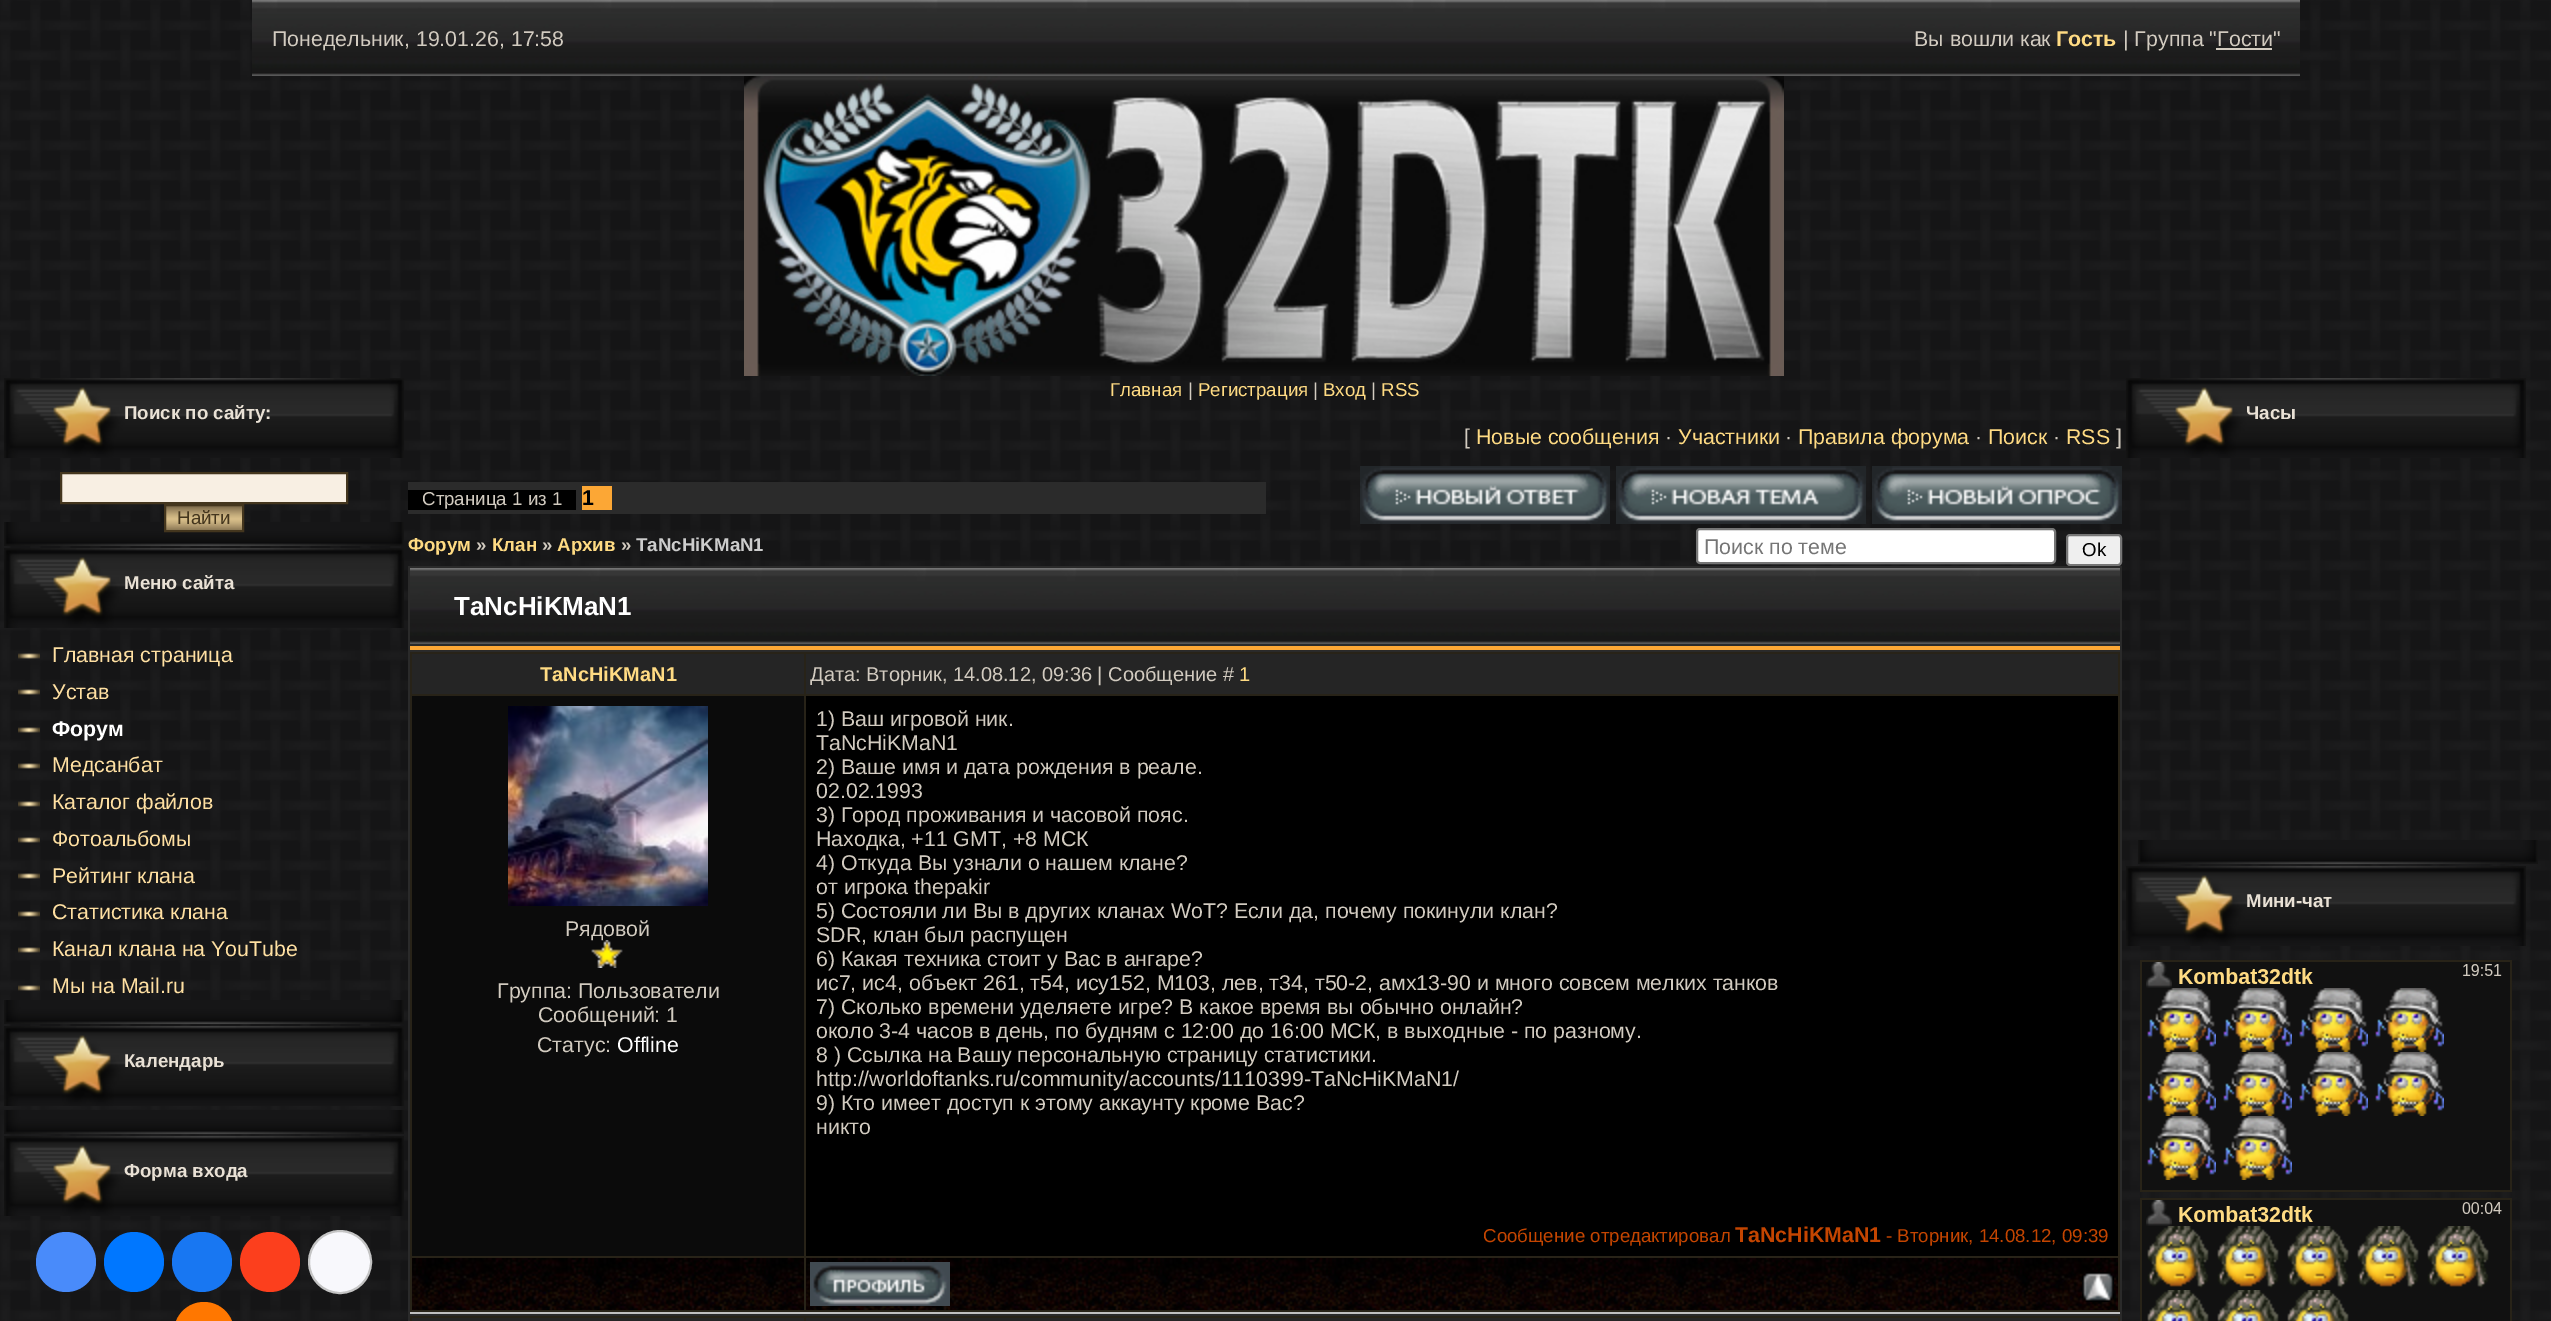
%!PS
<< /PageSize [2551 1321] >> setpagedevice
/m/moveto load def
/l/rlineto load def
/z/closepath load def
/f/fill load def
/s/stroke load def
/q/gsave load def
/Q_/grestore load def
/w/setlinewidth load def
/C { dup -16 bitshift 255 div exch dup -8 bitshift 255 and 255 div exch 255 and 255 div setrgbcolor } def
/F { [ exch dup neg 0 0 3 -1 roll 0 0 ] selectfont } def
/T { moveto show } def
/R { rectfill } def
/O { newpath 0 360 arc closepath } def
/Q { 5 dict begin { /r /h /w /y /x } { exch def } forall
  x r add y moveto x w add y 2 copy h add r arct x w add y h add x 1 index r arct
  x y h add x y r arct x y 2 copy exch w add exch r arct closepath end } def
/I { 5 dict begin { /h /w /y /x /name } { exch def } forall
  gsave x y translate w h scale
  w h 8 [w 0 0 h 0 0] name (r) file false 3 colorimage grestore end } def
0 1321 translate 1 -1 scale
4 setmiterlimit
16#FFFFFF C
0 0 2551 1321 R
(1.rgb) 0 0 2551 1321 I
(2.rgb) 252 0 2048 76 I
/LiberationSans-Regular 21.35 F
16#D2CBC0 C
(Понедельник, 19.01.26, 17:58) 272 46 T
(Вы вошли как) 1914 46 T
/LiberationSans-Bold 21.35 F
16#FFDB83 C
(Гость) 2056 46 T
/LiberationSans-Regular 21.35 F
16#D2CBC0 C
(| Группа "Гости") 2123 46 T
2216 48 56 2 R
(3.rgb) 744 76 1040 300 I
(4.rgb) 4 378 400 80 I
/LiberationSans-Bold 18.7 F
16#E9E1D5 C
(Поиск по сайту:) 124 419 T
(5.rgb) 4 522 400 24 I
16#F8EFE3 C
61 473 m 286 0 l 0 30 l -286 0 l z q f Q_
16#44361E C
2 w
s
(6.rgb) 166 506 76 24 I
165 505 78 26 rectstroke
/LiberationSans-Regular 18.7 F
(Найти) 177 524 T
(4.rgb) 4 548 400 80 I
/LiberationSans-Bold 18.7 F
16#E9E1D5 C
(Меню сайта) 124 589 T
(5.rgb) 4 1000 400 24 I
(7.rgb) 18 653 22 6 I
/LiberationSans-Regular 21.35 F
16#FFE0A2 C
(Главная страница) 52 662 T
(8.rgb) 18 689 22 6 I
(Устав) 52 699 T
(9.rgb) 18 727 22 6 I
/LiberationSans-Bold 21.35 F
16#FFFFFF C
(Форум) 52 736 T
(10.rgb) 18 763 22 6 I
/LiberationSans-Regular 21.35 F
16#FFE0A2 C
(Медсанбат) 52 772 T
(11.rgb) 18 801 22 6 I
(Каталог файлов) 52 809 T
(12.rgb) 18 837 22 6 I
(Фотоальбомы) 52 846 T
(13.rgb) 18 873 22 6 I
(Рейтинг клана) 52 883 T
(14.rgb) 18 911 22 6 I
(Статистика клана) 52 919 T
(15.rgb) 18 947 22 6 I
(Канал клана на YouTube) 52 956 T
(16.rgb) 18 985 22 6 I
(Мы на Мail.ru) 52 993 T
(4.rgb) 4 1026 400 80 I
/LiberationSans-Bold 18.7 F
16#E9E1D5 C
(Календарь) 124 1067 T
(5.rgb) 4 1110 400 24 I
(4.rgb) 4 1136 400 80 I
(Форма входа) 124 1177 T
16#498BFA C
66 1262 30 O f
16#0077FF C
134 1262 30 O f
16#1877F2 C
202 1262 30 O f
16#FC3F1D C
270 1262 30 O f
16#F8F8FC C
340 1262 31 O q f Q_
16#C4C4C4 C
s
16#FF7700 C
174 1302 60 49 30 Q f
/LiberationSans-Regular 18.7 F
16#FFDB83 C
(Главная) 1110 396 T
16#D2CBC0 C
(|) 1188 396 T
16#FFDB83 C
(Регистрация) 1198 396 T
16#D2CBC0 C
(|) 1313 396 T
16#FFDB83 C
(Вход) 1323 396 T
16#D2CBC0 C
(|) 1371 396 T
16#FFDB83 C
(RSS) 1381 396 T
/LiberationSans-Regular 21.35 F
16#D2CBC0 C
([) 1464 444 T
16#FFDB83 C
(Новые сообщения) 1476 444 T
16#D2CBC0 C
(·) 1665 444 T
16#FFDB83 C
(Участники) 1678 444 T
16#D2CBC0 C
(·) 1785 444 T
16#FFDB83 C
(Правила форума) 1798 444 T
16#D2CBC0 C
(·) 1975 444 T
16#FFDB83 C
(Поиск) 1988 444 T
16#D2CBC0 C
(·) 2053 444 T
16#FFDB83 C
(RSS) 2066 444 T
16#D2CBC0 C
(]) 2116 444 T
16#2B2B2B C
408 482 858 32 R
16#000000 C
408 490 168 20 R
/LiberationSans-Regular 18.7 F
16#D2CBC0 C
(Страница 1 из 1) 422 505 T
16#FCA735 C
582 486 30 24 R
/LiberationSans-Bold 21.35 F
16#000000 C
(1) 582 505 T
(17.rgb) 1360 466 250 58 I
(18.rgb) 1616 466 250 58 I
(19.rgb) 1872 466 250 58 I
/LiberationSans-Bold 18.7 F
16#FFDB83 C
(Форум) 408 551 T
16#D2CBC0 C
(») 476 551 T
16#FFDB83 C
(Клан) 492 551 T
16#D2CBC0 C
(») 542 551 T
16#FFDB83 C
(Архив) 557 551 T
16#D2CBC0 C
(») 621 551 T
16#CCCCCC C
(TaNcHiKMaN1) 636 551 T
16#FFFFFF C
1697 529 358 34 3 Q q f Q_
16#767676 C
s
/LiberationSans-Regular 21.35 F
16#757575 C
(Поиск по теме) 1704 554 T
16#EFEFEF C
2067 535 54 30 3 Q q f Q_
16#767676 C
s
/LiberationSans-Regular 18.7 F
16#000000 C
(Ok) 2082 556 T
16#2A2A2A C
408 566 1714 755 R
(20.rgb) 410 568 1710 76 I
/LiberationSans-Bold 26 F
16#FFFFFF C
(TaNcHiKMaN1) 454 615 T
16#FCA735 C
410 646 1710 4 R
16#C0C0C0 C
410 1312 1710 2 R
16#282318 C
410 652 1710 660 R
16#252525 C
412 654 392 40 R
/LiberationSans-Bold 20 F
16#FFDB83 C
(TaNcHiKMaN1) 540 681 T
16#252525 C
806 654 1312 40 R
/LiberationSans-Regular 20 F
16#D2CBC0 C
(Дата: Вторник, 14.08.12, 09:36 | Сообщение #) 810 681 T
16#FFDB83 C
(1) 1239 681 T
16#0B0B0B C
412 696 392 560 R
(21.rgb) 508 706 200 200 I
/LiberationSans-Regular 21.35 F
16#D2CBC0 C
(Рядовой) 565 936 T
(22.rgb) 591 940 32 28 I
(Группа: Пользователи) 497 998 T
(Сообщений: 1) 538 1022 T
(Статус:) 537 1052 T
16#FFFFFF C
(Offline) 617 1052 T
16#000000 C
806 696 1312 560 R
16#D2CBC0 C
(1\) Ваш игровой ник.) 816 726 T
(TaNcHiKMaN1) 816 750 T
(2\) Ваше имя и дата рождения в реале.) 816 774 T
(02.02.1993) 816 798 T
(3\) Город проживания и часовой пояс.) 816 822 T
(Находка, +11 GMT, +8 МСК) 816 846 T
(4\) Откуда Вы узнали о нашем клане?) 816 870 T
(от игрока thepakir) 816 894 T
(5\) Состояли ли Вы в других кланах WoT? Если да, почему покинули клан?) 816 918 T
(SDR, клан был распущен) 816 942 T
(6\) Какая техника стоит у Вас в ангаре?) 816 966 T
(ис7, ис4, объект 261, т54, ису152, М103, лев, т34, т50-2, амх13-90 и много совсем мелких танков) 816 990 T
(7\) Сколько времени уделяете игре? В какое время вы обычно онлайн?) 816 1014 T
(около 3-4 часов в день, по будням с 12:00 до 16:00 МСК, в выходные - по разному.) 816 1038 T
(8 \) Ссылка на Вашу персональную страницу статистики.) 816 1062 T
(http://worldoftanks.ru/community/accounts/1110399-TaNcHiKMaN1/) 816 1086 T
(9\) Кто имеет доступ к этому аккаунту кроме Вас?) 816 1110 T
(никто) 816 1134 T
/LiberationSans-Regular 18.7 F
16#C44500 C
(Сообщение отредактировал) 1483 1242 T
/LiberationSans-Bold 21.35 F
(TaNcHiKMaN1) 1735 1242 T
/LiberationSans-Regular 18.7 F
(- Вторник, 14.08.12, 09:39) 1886 1242 T
(23.rgb) 412 1258 392 52 I
(24.rgb) 806 1258 1312 52 I
(25.rgb) 810 1262 140 44 I
(26.rgb) 2082 1272 32 30 I
16#282318 C
410 1316 1710 5 R
16#252525 C
412 1318 392 3 R
806 1318 1312 3 R
(4.rgb) 2126 378 400 80 I
/LiberationSans-Bold 18.7 F
16#E9E1D5 C
(Часы) 2246 419 T
(5.rgb) 2138 840 400 24 I
(4.rgb) 2126 866 400 80 I
(Мини-чат) 2246 907 T
(27.rgb) 2140 960 372 361 I
showpage
